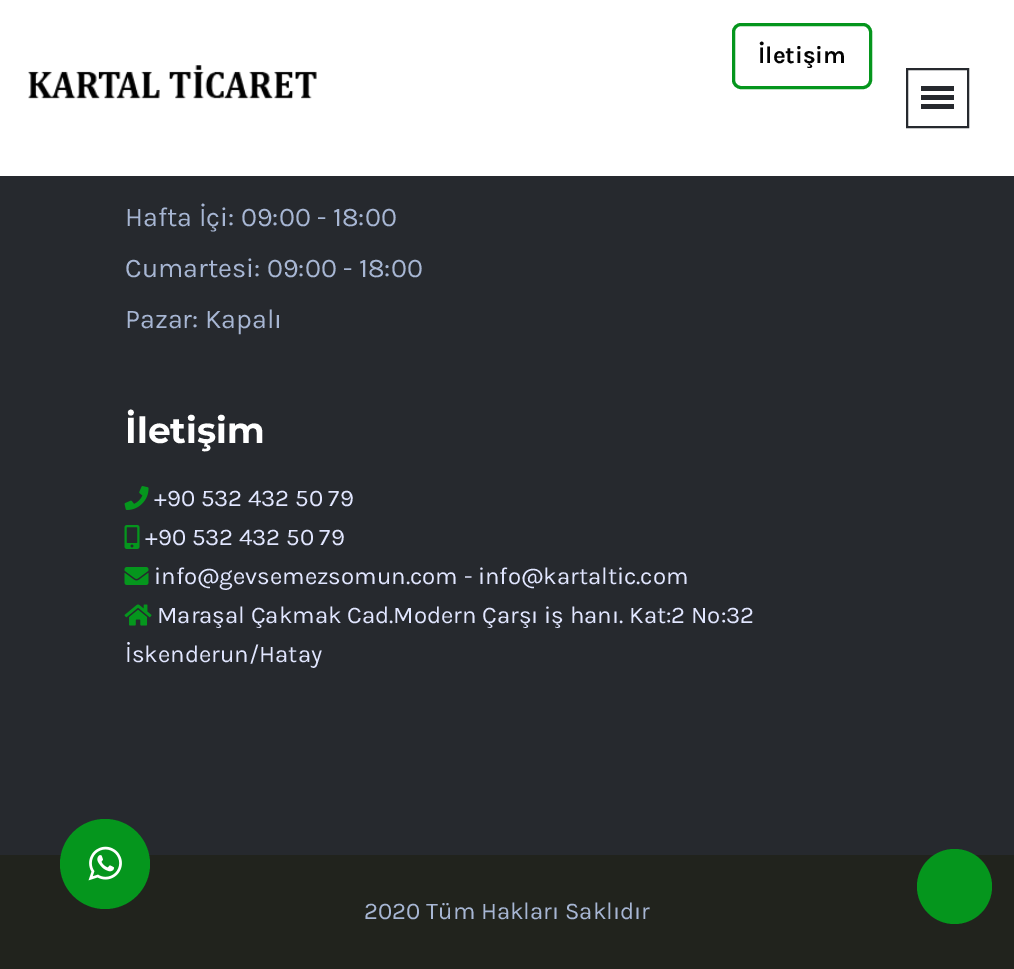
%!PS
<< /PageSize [1014 969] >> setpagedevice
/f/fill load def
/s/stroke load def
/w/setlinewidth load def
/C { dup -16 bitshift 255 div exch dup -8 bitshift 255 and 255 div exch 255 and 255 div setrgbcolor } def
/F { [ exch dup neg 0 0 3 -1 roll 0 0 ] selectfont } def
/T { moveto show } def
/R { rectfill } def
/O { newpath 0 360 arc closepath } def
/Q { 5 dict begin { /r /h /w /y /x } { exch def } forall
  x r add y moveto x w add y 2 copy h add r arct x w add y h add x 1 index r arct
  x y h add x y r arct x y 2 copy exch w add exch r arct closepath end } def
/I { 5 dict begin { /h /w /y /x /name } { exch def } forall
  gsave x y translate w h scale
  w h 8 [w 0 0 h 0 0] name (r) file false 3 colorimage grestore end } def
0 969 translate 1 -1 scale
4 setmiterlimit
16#21231D C
0 0 1014 969 R
16#FFFFFF C
0 0 1014 176 R
16#05961D C
3 w
733.5 24.5 137 63 7.5 Q s
/Karla-Bold 24 F
16#030303 C
(İletişim) 758 63 T
(1.rgb) 28 65 289 34 I
16#26292E C
2 w
907 69 61 58 rectstroke
921 86 33 5 R
921 95 33 5 R
921 104 33 5 R
0 176 1014 679 R
16#05961D C
105 864 45 O f
(2.rgb) 88 846 34 35 I
/Karla-Regular 27 F
16#A7B6D3 C
(Hafta İçi: 09:00 - 18:00) 125 226 T
(Cumartesi: 09:00 - 18:00) 125 277 T
(Pazar: Kapalı) 125 328 T
/Montserrat-Thin 36 F
16#FFFFFF C
(İletişim) 125 443 T
(3.rgb) 124 486 25 24 I
/Karla-Regular 24 F
16#E1E6FF C
(+90 532 432 50 79) 154 506 T
(4.rgb) 124 525 16 24 I
(+90 532 432 50 79) 145 545 T
(5.rgb) 124 567 25 18 I
(info@gevsemezsomun.com - info@kartaltic.com) 154 584 T
(6.rgb) 124 604 28 22 I
(Maraşal Çakmak Cad.Modern Çarşı iş hanı. Kat:2 No:32) 157 623 T
(İskenderun/Hatay) 125 662 T
16#A7B6D3 C
(2020 Tüm Hakları Saklıdır) 364 919 T
16#05961D C
954.5 886.5 37.5 O f
showpage
